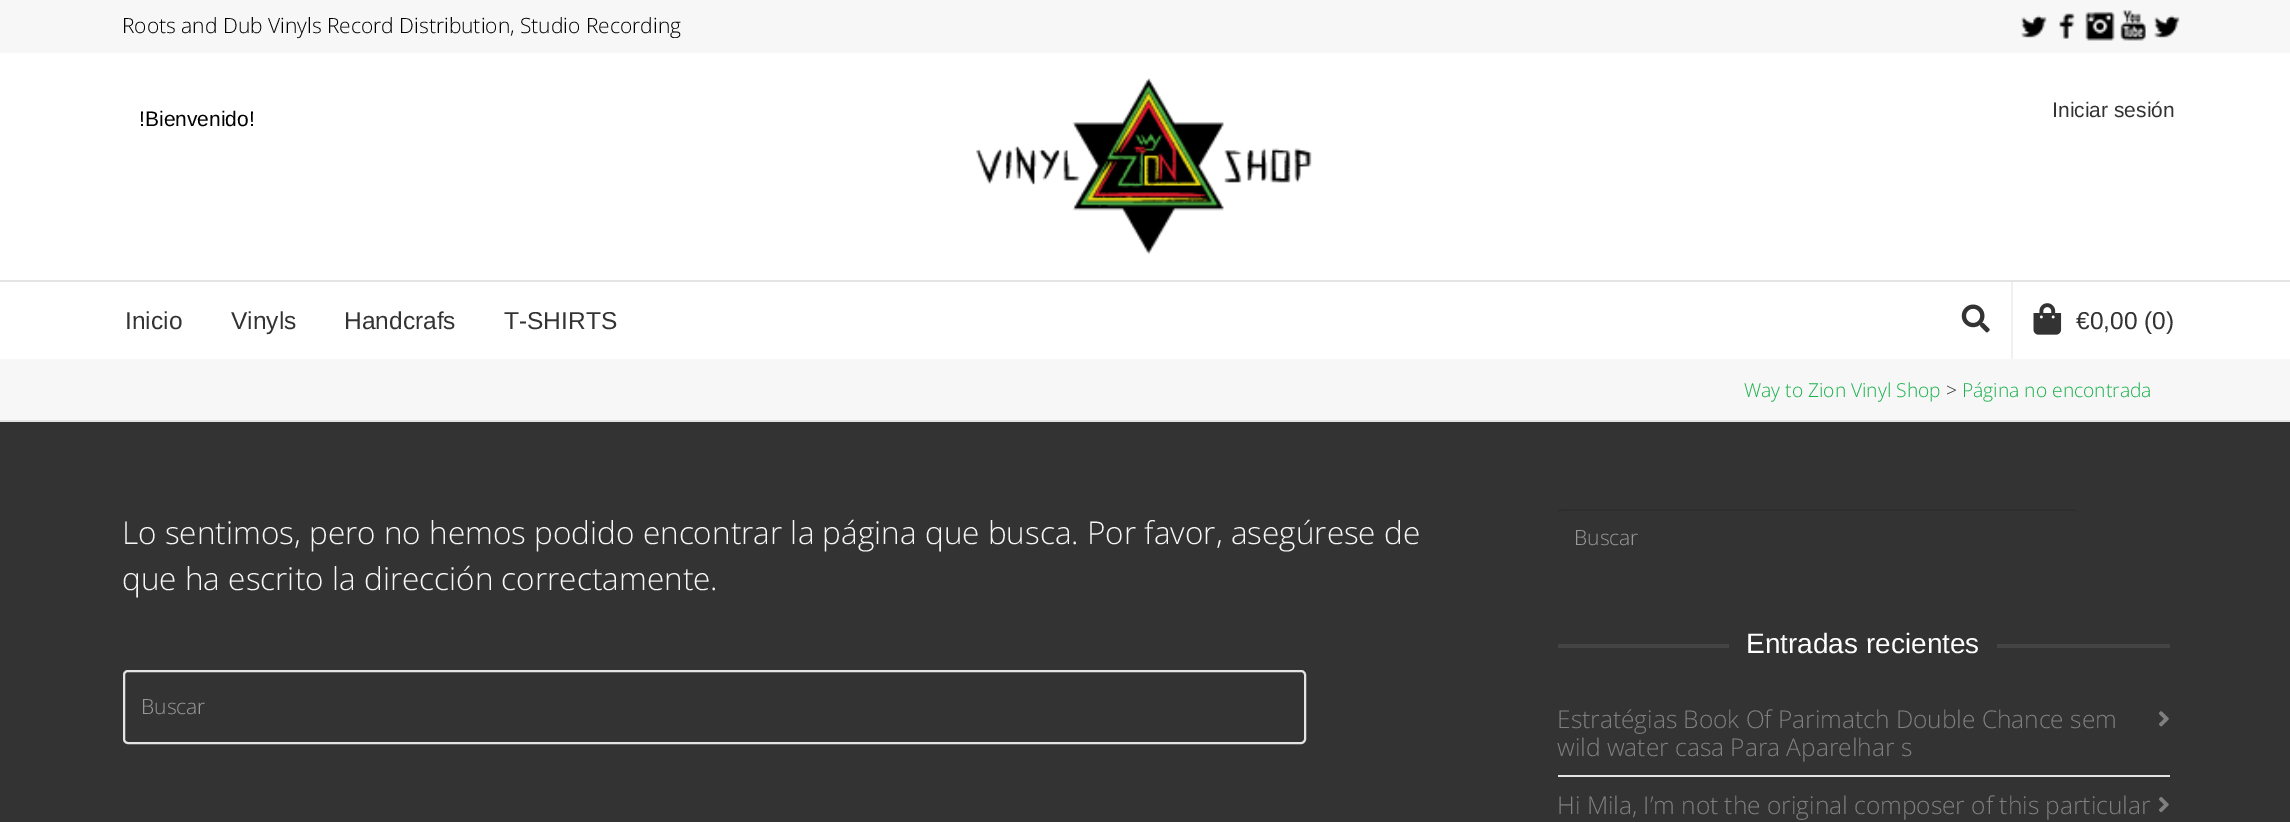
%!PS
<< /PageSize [2290 822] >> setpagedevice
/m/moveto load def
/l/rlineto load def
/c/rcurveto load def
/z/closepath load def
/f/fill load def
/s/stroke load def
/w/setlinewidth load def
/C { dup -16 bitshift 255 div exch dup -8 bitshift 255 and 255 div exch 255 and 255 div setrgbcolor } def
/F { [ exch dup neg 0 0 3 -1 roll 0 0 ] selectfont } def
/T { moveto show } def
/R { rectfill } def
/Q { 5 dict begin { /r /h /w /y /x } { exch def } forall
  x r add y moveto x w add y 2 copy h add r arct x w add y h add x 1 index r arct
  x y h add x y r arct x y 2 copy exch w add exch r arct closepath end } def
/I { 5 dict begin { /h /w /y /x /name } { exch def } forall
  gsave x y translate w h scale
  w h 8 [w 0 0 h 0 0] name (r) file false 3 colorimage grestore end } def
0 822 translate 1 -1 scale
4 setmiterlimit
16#333333 C
0 0 2290 822 R
16#F7F7F7 C
0 0 2290 53 R
/OpenSans-Light 21 F
16#000000 C
(Roots and Dub Vinyls Record Distribution, Studio Recording) 122 33 T
(1.rgb) 2021 15 26 23 I
(2.rgb) 2059 13 16 26 I
(3.rgb) 2085 11 30 30 I
(4.rgb) 2120 10 26 31 I
(5.rgb) 2154 15 26 23 I
16#FFFFFF C
0 53 2290 306 R
/LiberationSans-Regular 21 F
16#000000 C
(!Bienvenido!) 139 126 T
(6.rgb) 976 78 336 176 I
16#333333 C
(Iniciar sesión) 2052 117 T
16#E4E4E4 C
0 280 2290 2 R
/LiberationSans-Regular 24.5 F
16#333333 C
(Inicio) 125 329 T
(Vinyls) 231 329 T
(Handcrafs) 344 329 T
(T-SHIRTS) 504 329 T
(7.rgb) 1961 304 29 29 I
16#F0F0F0 C
2011 282 2 77 R
(8.rgb) 2033 303 29 32 I
16#333333 C
(€0,00 \(0\)) 2076 329 T
16#F7F7F7 C
0 359 2290 61 R
16#E4E4E4 C
0 420 2290 2 R
/OpenSans-Light 19.25 F
16#19B14B C
(Way to Zion Vinyl Shop) 1744 397 T
16#333333 C
(>) 1946 397 T
16#19B14B C
(Página no encontrada) 1962 397 T
/OpenSans-Light 31.5 F
16#F7F7F7 C
(Lo sentimos, pero no hemos podido encontrar la página que busca. Por favor, asegúrese de) 122 544 T
(que ha escrito la dirección correctamente.) 122 590 T
16#E4E4E4 C
2 w
124 671 1181 72 4 Q s
/OpenSans-Light 21 F
16#999999 C
(Buscar) 141 714 T
16#2E2E2E C
1561 511 m 513 0 l 2 0 3 2 3 3 c 0 -1 l 0 -2 -2 -4 -4 -4 c -511 0 l -2 0 -4 2 -4 4 c 0 1 l 0 -1 1 -3 3 -3 c z f
16#999999 C
(Buscar) 1574 545 T
16#444444 C
1558 644 612 4 R
16#333333 C
1729 644 268 4 R
/LiberationSans-Regular 28 F
16#FFFFFF C
(Entradas recientes) 1746 653 T
/OpenSans-Light 24.5 F
16#808080 C
(Estratégias Book Of Parimatch Double Chance sem) 1557 728 T
(9.rgb) 2159 711 10 16 I
(wild water casa Para Aparelhar s) 1557 756 T
16#E4E4E4 C
1558 775 612 2 R
16#808080 C
(Hi Mila, I’m not the original composer of this particular) 1557 814 T
(10.rgb) 2159 797 10 16 I
showpage
